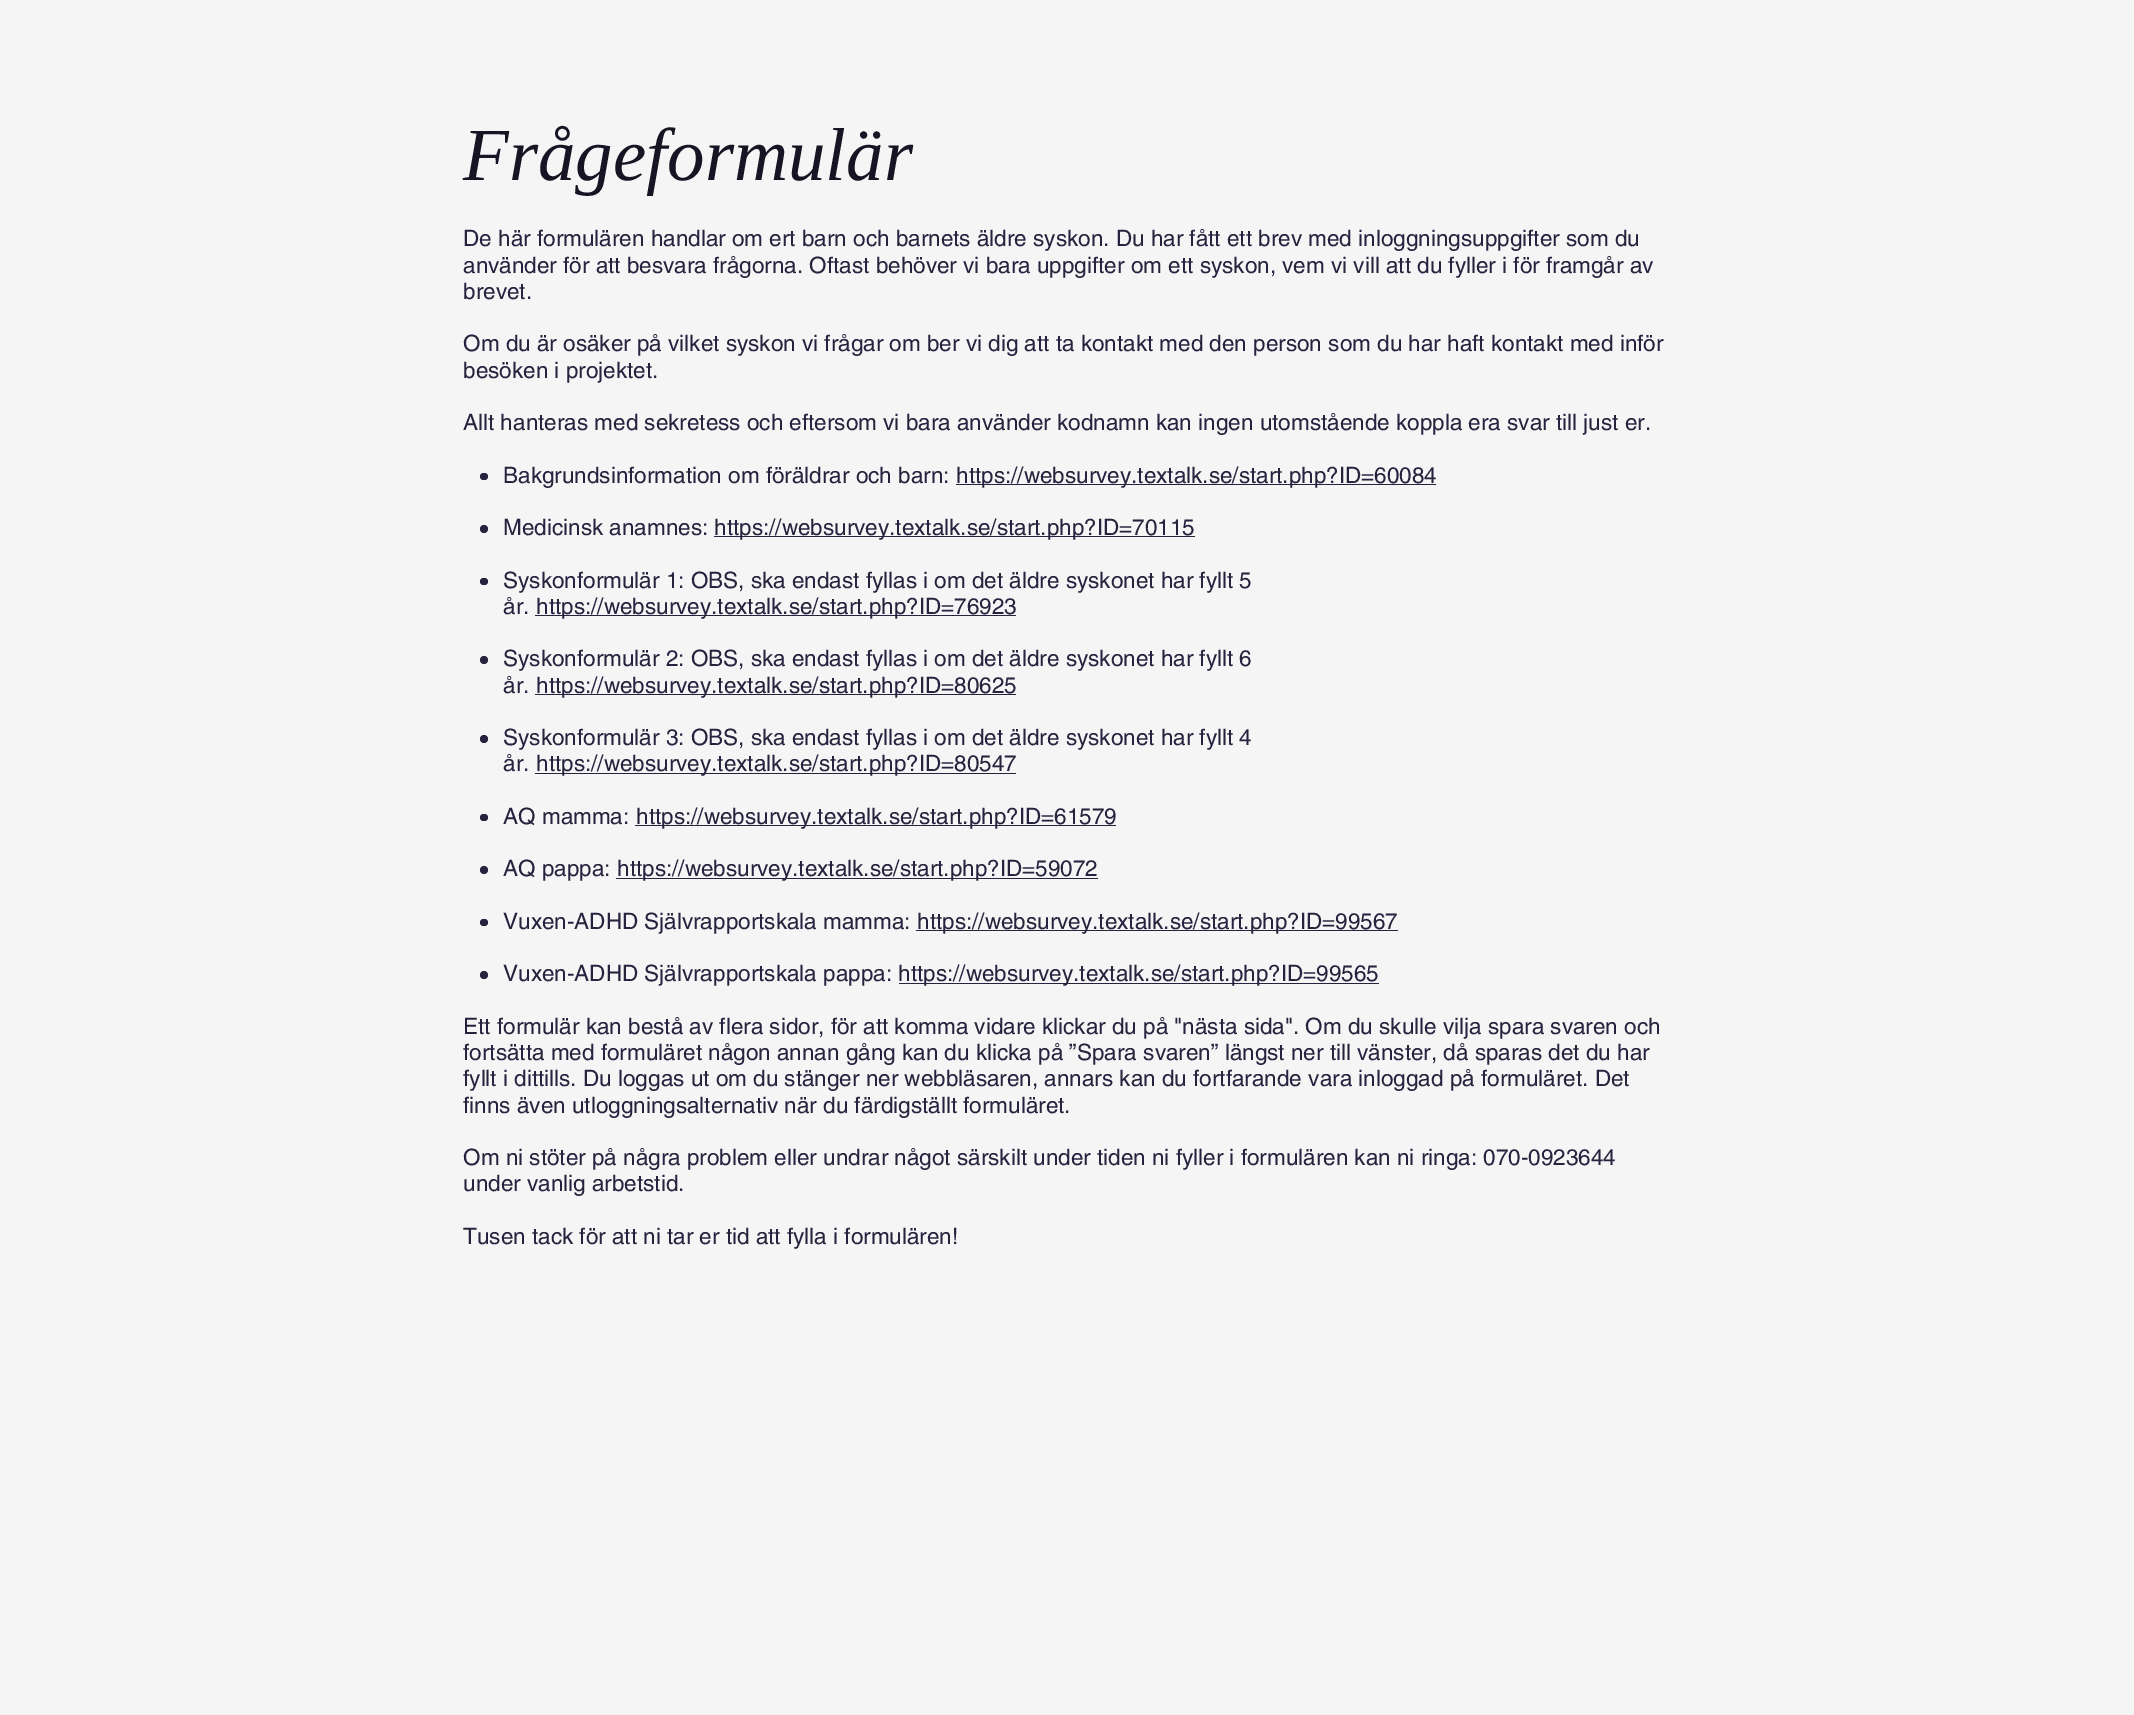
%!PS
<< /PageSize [2134 1715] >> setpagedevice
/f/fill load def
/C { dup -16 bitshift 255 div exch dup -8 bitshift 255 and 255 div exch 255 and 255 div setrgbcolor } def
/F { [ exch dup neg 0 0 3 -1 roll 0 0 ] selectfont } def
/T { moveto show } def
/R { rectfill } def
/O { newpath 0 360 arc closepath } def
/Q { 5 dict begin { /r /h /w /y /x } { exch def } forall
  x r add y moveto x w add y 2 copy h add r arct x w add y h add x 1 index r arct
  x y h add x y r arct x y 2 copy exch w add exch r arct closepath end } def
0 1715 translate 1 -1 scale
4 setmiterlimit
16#F5F5F5 C
0 0 2134 1715 R
/LiberationSerif-Italic 75 F
16#171424 C
(Frågeformulär) 463 180 T
/helvetica-Regular 22.5 F
16#27223E C
(De här formulären handlar om ert barn och barnets äldre syskon. Du har fått ett brev med inloggningsuppgifter som du) 463 246 T
(använder för att besvara frågorna. Oftast behöver vi bara uppgifter om ett syskon, vem vi vill att du fyller i för framgår av) 463 273 T
(brevet.) 463 299 T
(Om du är osäker på vilket syskon vi frågar om ber vi dig att ta kontakt med den person som du har haft kontakt med inför) 463 351 T
(besöken i projektet.) 463 378 T
(Allt hanteras med sekretess och eftersom vi bara använder kodnamn kan ingen utomstående koppla era svar till just er.) 463 430 T
480 473 8 7 3.5 Q f
(Bakgrundsinformation om föräldrar och barn:) 503 483 T
956 484 480 1 R
(https://websurvey.textalk.se/start.php?ID=60084) 956 483 T
484 529 4 O f
(Medicinsk anamnes:) 503 535 T
714 536 481 1 R
(https://websurvey.textalk.se/start.php?ID=70115) 714 535 T
480 578 8 7 3.5 Q f
(Syskonformulär 1: OBS, ska endast fyllas i om det äldre syskonet har fyllt 5) 503 588 T
(år.) 503 614 T
535 615 481 1 R
(https://websurvey.textalk.se/start.php?ID=76923) 536 614 T
484 660 4 O f
(Syskonformulär 2: OBS, ska endast fyllas i om det äldre syskonet har fyllt 6) 503 666 T
(år.) 503 693 T
535 694 481 1 R
(https://websurvey.textalk.se/start.php?ID=80625) 536 693 T
484 739 4 O f
(Syskonformulär 3: OBS, ska endast fyllas i om det äldre syskonet har fyllt 4) 503 745 T
(år.) 503 771 T
535 773 481 1 R
(https://websurvey.textalk.se/start.php?ID=80547) 536 771 T
480 814 8 7 3.5 Q f
(AQ mamma:) 503 824 T
635 825 481 1 R
(https://websurvey.textalk.se/start.php?ID=61579) 636 824 T
484 870 4 O f
(AQ pappa:) 503 876 T
616 878 482 1 R
(https://websurvey.textalk.se/start.php?ID=59072) 617 876 T
480 919 8 7 3.5 Q f
(Vuxen-ADHD Självrapportskala mamma:) 503 929 T
916 930 482 1 R
(https://websurvey.textalk.se/start.php?ID=99567) 917 929 T
484 975 4 O f
(Vuxen-ADHD Självrapportskala pappa:) 503 981 T
899 983 480 1 R
(https://websurvey.textalk.se/start.php?ID=99565) 898 981 T
(Ett formulär kan bestå av flera sidor, för att komma vidare klickar du på "nästa sida". Om du skulle vilja spara svaren och) 463 1034 T
(fortsätta med formuläret någon annan gång kan du klicka på ”Spara svaren” längst ner till vänster, då sparas det du har) 463 1060 T
(fyllt i dittills. Du loggas ut om du stänger ner webbläsaren, annars kan du fortfarande vara inloggad på formuläret. Det) 463 1086 T
(finns även utloggningsalternativ när du färdigställt formuläret.) 463 1113 T
(Om ni stöter på några problem eller undrar något särskilt under tiden ni fyller i formulären kan ni ringa: 070-0923644) 463 1165 T
(under vanlig arbetstid.) 463 1191 T
(Tusen tack för att ni tar er tid att fylla i formulären!) 463 1244 T
showpage
